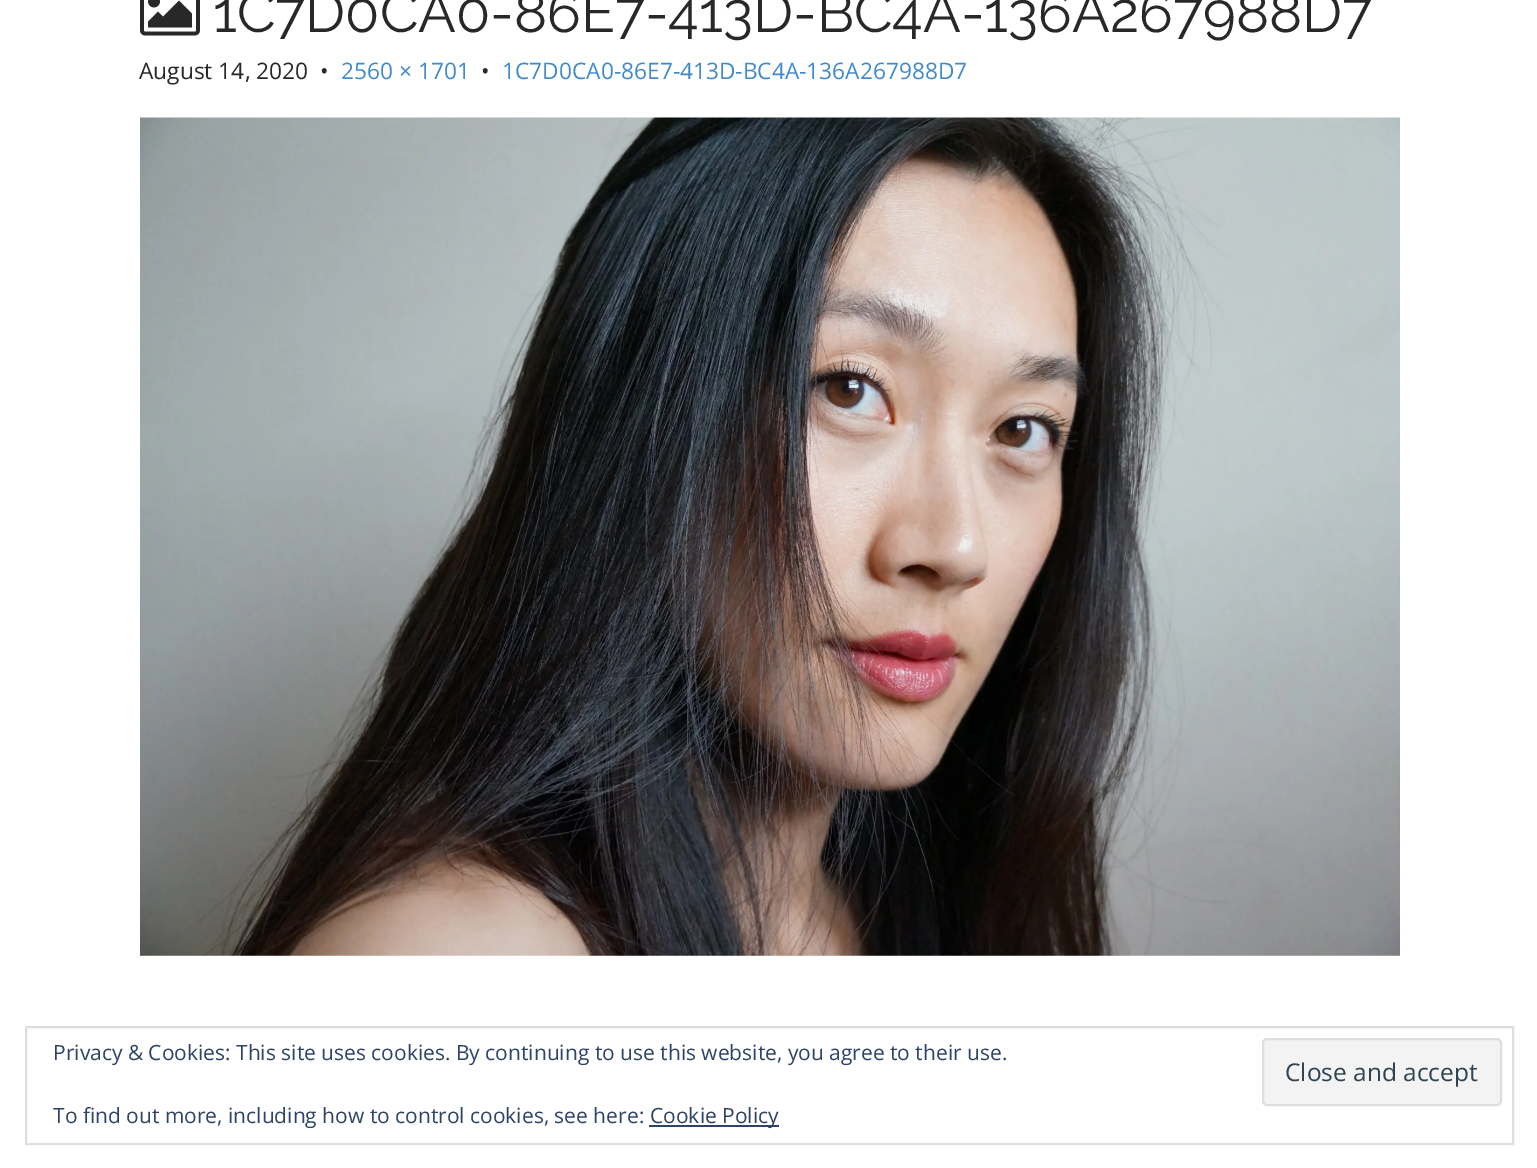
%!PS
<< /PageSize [1537 1168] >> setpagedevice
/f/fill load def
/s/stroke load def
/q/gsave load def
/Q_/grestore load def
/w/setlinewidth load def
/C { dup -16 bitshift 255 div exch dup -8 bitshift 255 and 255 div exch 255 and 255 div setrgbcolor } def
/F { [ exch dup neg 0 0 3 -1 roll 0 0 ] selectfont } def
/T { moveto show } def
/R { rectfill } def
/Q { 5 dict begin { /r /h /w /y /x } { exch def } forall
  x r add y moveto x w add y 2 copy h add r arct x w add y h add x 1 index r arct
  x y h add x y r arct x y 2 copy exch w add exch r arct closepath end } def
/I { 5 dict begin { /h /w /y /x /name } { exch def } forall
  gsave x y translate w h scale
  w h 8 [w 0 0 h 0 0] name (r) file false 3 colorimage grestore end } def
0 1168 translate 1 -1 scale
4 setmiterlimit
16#FFFFFF C
0 0 1537 1168 R
(1.rgb) 140 0 60 36 I
/Raleway-Thin 56 F
16#282828 C
(1C7D0CA0-86E7-413D-BC4A-136A267988D7) 213 32 T
/OpenSans-Regular 22.75 F
(August 14, 2020) 139 79 T
(•) 320 79 T
16#428BCA C
(2560 × 1701) 341 79 T
16#282828 C
(•) 481 79 T
16#428BCA C
(1C7D0CA0-86E7-413D-BC4A-136A267988D7) 502 79 T
(2.rgb) 140 117 1260 839 I
16#DEDEDE C
2 w
26 1027 1487 117 rectstroke
/OpenSans-Regular 21 F
16#2E4467 C
(Privacy & Cookies: This site uses cookies. By continuing to use this website, you agree to their use.) 53 1060 T
16#F3F3F3 C
1263 1039 238 66 4 Q q f Q_
16#DEDEDE C
s
/OpenSans-Regular 24.5 F
16#2E4453 C
(Close and accept) 1285 1081 T
/OpenSans-Regular 21 F
16#2E4467 C
(To find out more, including how to control cookies, see here:) 53 1123 T
649 1125 130 2 R
(Cookie Policy) 650 1123 T
showpage
